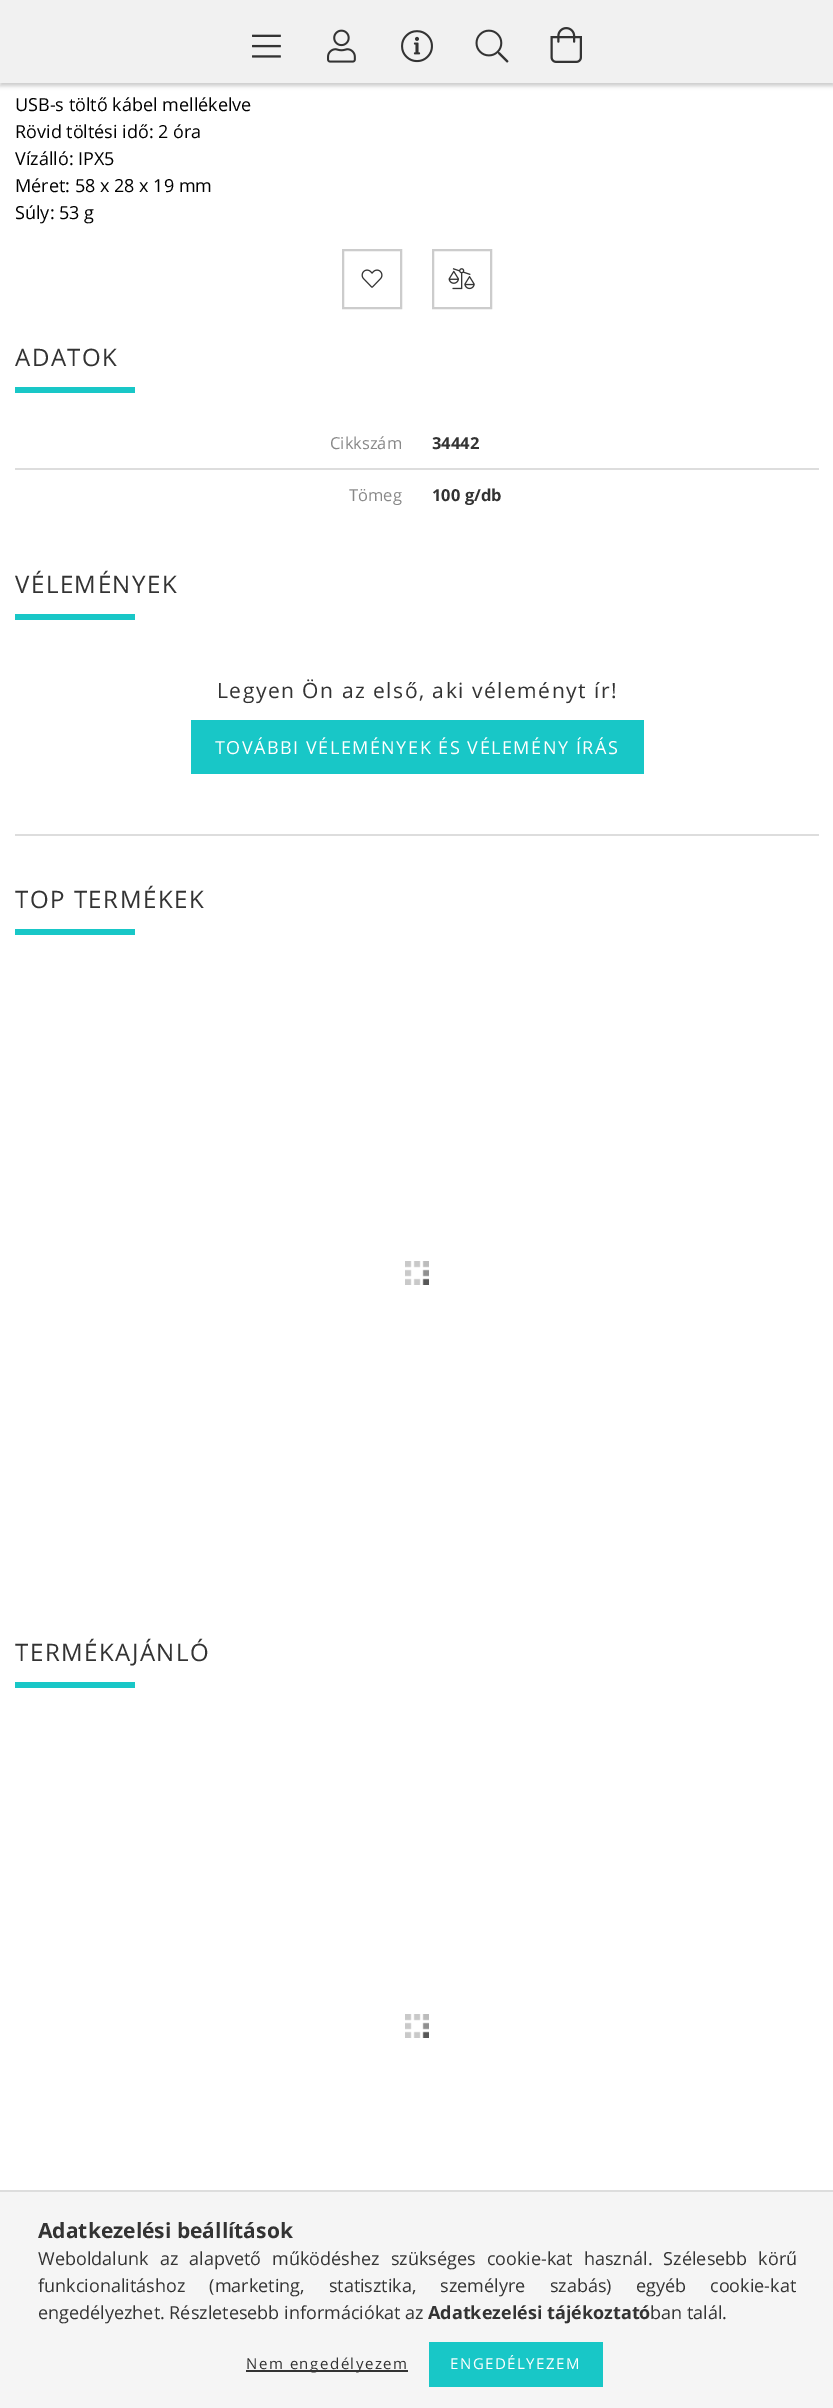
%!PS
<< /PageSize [833 2408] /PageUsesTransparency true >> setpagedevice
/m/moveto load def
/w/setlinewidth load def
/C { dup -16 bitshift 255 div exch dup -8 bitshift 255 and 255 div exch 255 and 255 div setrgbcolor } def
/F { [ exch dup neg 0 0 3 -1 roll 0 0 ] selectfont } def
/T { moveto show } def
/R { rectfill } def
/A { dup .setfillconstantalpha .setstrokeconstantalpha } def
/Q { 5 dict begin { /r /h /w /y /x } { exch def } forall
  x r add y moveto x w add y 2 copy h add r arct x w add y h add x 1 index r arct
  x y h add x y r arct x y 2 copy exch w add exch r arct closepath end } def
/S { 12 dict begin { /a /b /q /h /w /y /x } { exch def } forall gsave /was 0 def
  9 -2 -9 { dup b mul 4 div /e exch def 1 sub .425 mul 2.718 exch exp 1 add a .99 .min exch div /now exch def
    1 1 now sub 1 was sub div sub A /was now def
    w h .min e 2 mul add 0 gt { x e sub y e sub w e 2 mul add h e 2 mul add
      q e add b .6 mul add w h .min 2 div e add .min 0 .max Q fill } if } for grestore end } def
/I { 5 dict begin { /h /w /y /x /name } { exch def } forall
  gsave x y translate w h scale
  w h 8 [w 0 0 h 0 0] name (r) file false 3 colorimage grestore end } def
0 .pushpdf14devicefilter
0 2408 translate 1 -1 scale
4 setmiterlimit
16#FFFFFF C
0 0 833 2408 R
16#000000 C
0 -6 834 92 0 2 .2 S
16#F1F1F1 C
0 0 833 83 R
(1.rgb) 252 34 29 24 I
(2.rgb) 327 29 29 34 I
(3.rgb) 401 30 32 33 I
(4.rgb) 475 29 34 34 I
(5.rgb) 550 27 32 36 I
/OpenSans-Regular 18 F
16#000000 C
(USB-s töltő kábel mellékelve) 15 111 T
(Rövid töltési idő: 2 óra) 15 138 T
(Vízálló: IPX5) 15 165 T
(Méret: 58 x 28 x 19 mm) 15 192 T
(Súly: 53 g) 15 219 T
16#CCCCCC C
2 w
343 250 58 58 rectstroke
(6.rgb) 361 269 22 19 I
433 250 58 58 rectstroke
(7.rgb) 448 268 27 22 I
/OpenSans-Regular 24 F
16#333333 C
15 366 m 1.5 0 (ADATOK) ashow
16#18C7C7 C
15 387 120 6 R
/OpenSans-Regular 16.5 F
16#888888 C
(Cikkszám) 330 449 T
/OpenSans-Bold 16.5 F
16#333333 C
(34442) 432 449 T
16#DDDDDD C
15 468 804 2 R
/OpenSans-Regular 16.5 F
16#888888 C
(Tömeg) 349 501 T
/OpenSans-Bold 16.5 F
16#333333 C
(100 g/db) 432 501 T
/OpenSans-Regular 24 F
15 593 m 1.5 0 (VÉLEMÉNYEK) ashow
16#18C7C7 C
15 614 120 6 R
/OpenSans-Regular 21 F
16#333333 C
217 698 m 1.5 0 (Legyen Ön az első, aki véleményt ír!) ashow
16#18C7C7 C
191 720 453 54 R
/OpenSans-Regular 18 F
16#FFFFFF C
215 754 m 1.5 0 (TOVÁBBI VÉLEMÉNYEK ÉS VÉLEMÉNY ÍRÁS) ashow
16#DDDDDD C
15 834 804 2 R
/OpenSans-Regular 24 F
16#333333 C
15 908 m 1.5 0 (TOP TERMÉKEK) ashow
16#18C7C7 C
15 929 120 6 R
(8.rgb) 405 1261 24 24 I
16#333333 C
15 1661 m 1.5 0 (TERMÉKAJÁNLÓ) ashow
16#18C7C7 C
15 1682 120 6 R
(8.rgb) 405 2014 24 24 I
16#F5F5F5 C
0 2192 833 216 R
16#DDDDDD C
0 2190 833 2 R
/OpenSans-Bold 21 F
16#333333 C
(Adatkezelési beállítások) 38 2238 T
/OpenSans-Regular 18 F
38 2265 m 6.5 0 32 (Weboldalunk az alapvető működéshez szükséges cookie-kat használ. Szélesebb körű) widthshow
38 2292 m 19.5 0 32 (funkcionalitáshoz \(marketing, statisztika, személyre szabás\) egyéb cookie-kat) widthshow
(engedélyezhet. Részletesebb információkat az) 38 2319 T
/OpenSans-Bold 18 F
(Adatkezelési tájékoztató) 428 2319 T
/OpenSans-Regular 18 F
(ban talál.) 650 2319 T
246 2370 162 2 R
/OpenSans-Regular 15 F
246 2369 m 1.5 0 (Nem engedélyezem) ashow
16#18C7C7 C
429 2342 174 45 R
16#FFFFFF C
450 2369 m 1.5 0 (ENGEDÉLYEZEM) ashow
.poppdf14devicefilter showpage
